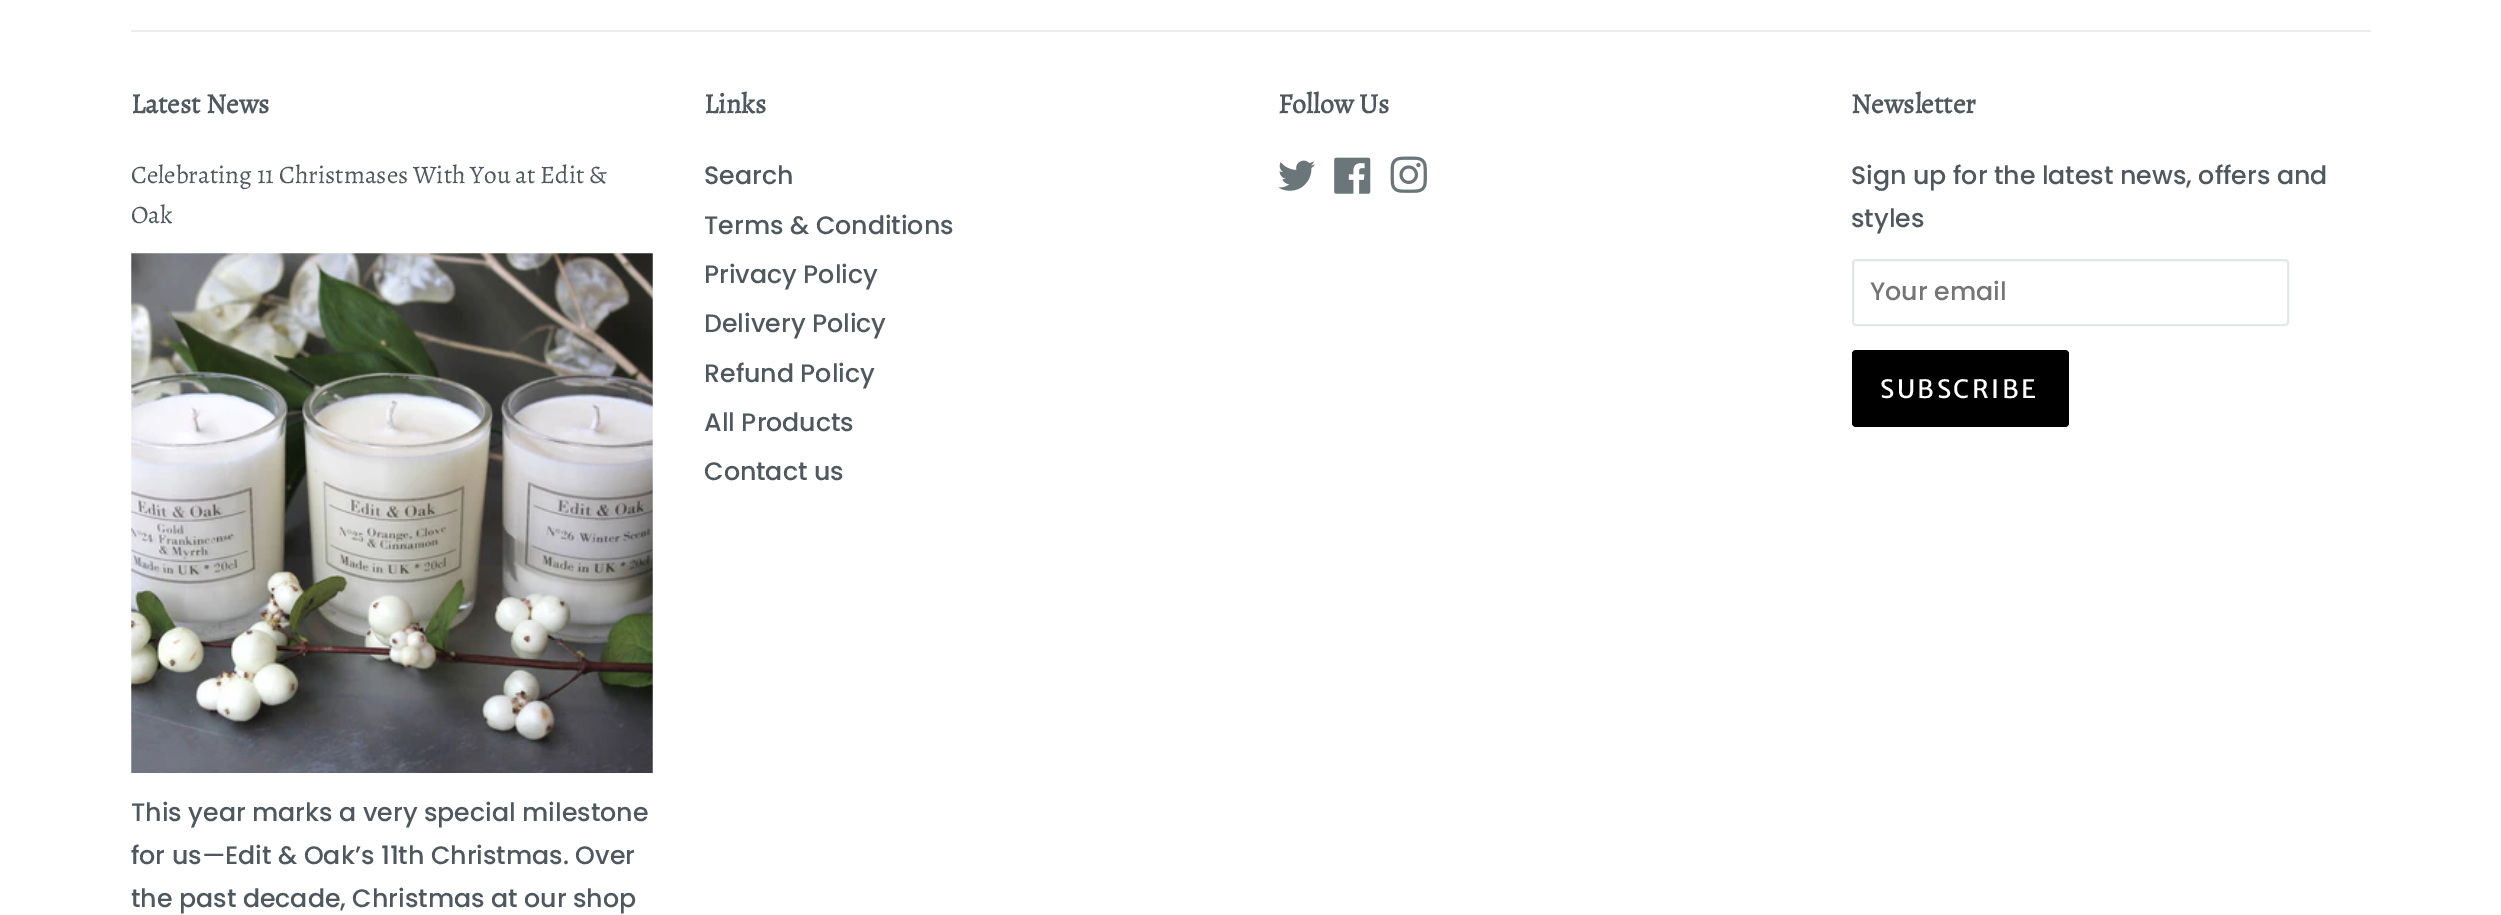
%!PS
<< /PageSize [2501 915] >> setpagedevice
/m/moveto load def
/f/fill load def
/s/stroke load def
/w/setlinewidth load def
/C { dup -16 bitshift 255 div exch dup -8 bitshift 255 and 255 div exch 255 and 255 div setrgbcolor } def
/F { [ exch dup neg 0 0 3 -1 roll 0 0 ] selectfont } def
/T { moveto show } def
/R { rectfill } def
/Q { 5 dict begin { /r /h /w /y /x } { exch def } forall
  x r add y moveto x w add y 2 copy h add r arct x w add y h add x 1 index r arct
  x y h add x y r arct x y 2 copy exch w add exch r arct closepath end } def
/I { 5 dict begin { /h /w /y /x /name } { exch def } forall
  gsave x y translate w h scale
  w h 8 [w 0 0 h 0 0] name (r) file false 3 colorimage grestore end } def
0 915 translate 1 -1 scale
4 setmiterlimit
16#FFFFFF C
0 0 2501 915 R
16#EBEBEB C
131 30 2240 2 R
/Alegreya-Bold 28 F
16#4E585E C
(Latest News) 131 113 T
/Alegreya-Regular 25.25 F
(Celebrating 11 Christmases With You at Edit &) 131 183 T
(Oak) 131 223 T
(1.rgb) 131 253 522 520 I
/Poppins-Medium 25.25 F
(This year marks a very special milestone) 131 821 T
(for us—Edit & Oak’s 11th Christmas. Over) 131 864 T
(the past decade, Christmas at our shop) 131 907 T
/Alegreya-Bold 28 F
(Links) 704 113 T
/Poppins-Medium 25.25 F
(Search) 704 184 T
(Terms & Conditions) 704 234 T
(Privacy Policy) 704 283 T
(Delivery Policy) 704 332 T
(Refund Policy) 704 382 T
(All Products) 704 431 T
(Contact us) 704 480 T
/Alegreya-Bold 28 F
(Follow Us) 1278 113 T
(2.rgb) 1278 160 37 31 I
(3.rgb) 1334 157 37 37 I
(4.rgb) 1390 156 37 37 I
(Newsletter) 1851 113 T
/Poppins-Medium 25.25 F
(Sign up for the latest news, offers and) 1851 184 T
(styles) 1851 227 T
16#E4E6E7 C
2 w
1853 260 435 65 3 Q s
16#757575 C
(Your email) 1870 300 T
16#000000 C
1852 350 217 77 4 Q f
/MerriweatherSans-Regular 25.25 F
16#FFFFFF C
1880 398 m 2.5 0 (SUBSCRIBE) ashow
showpage
